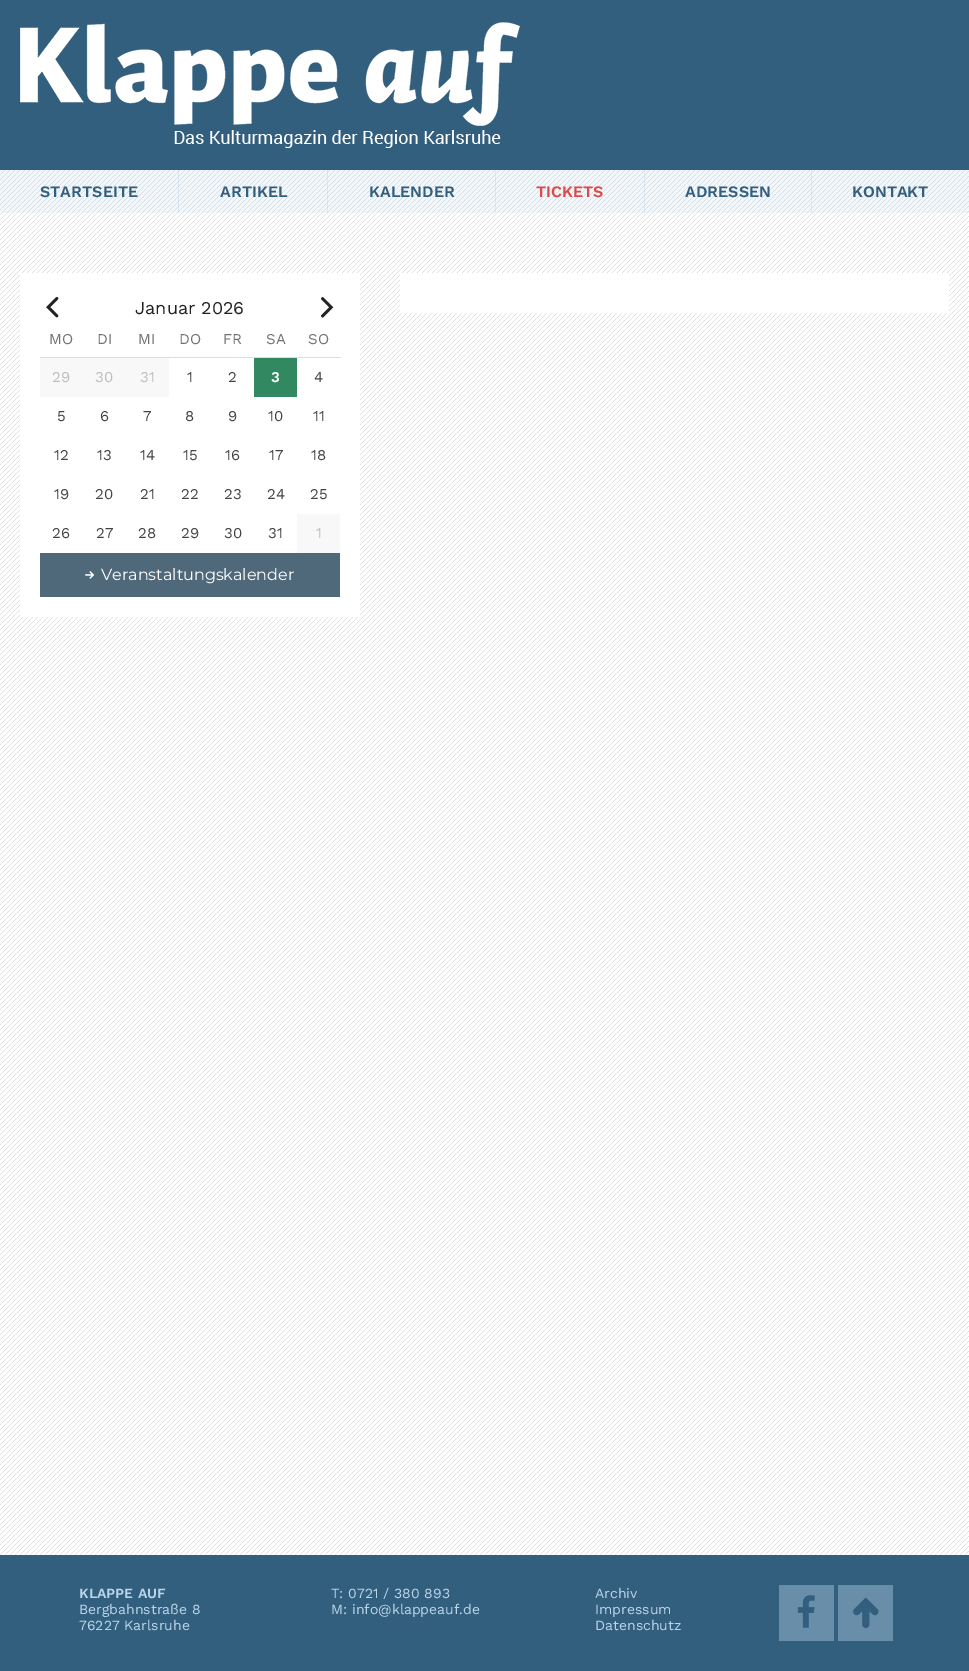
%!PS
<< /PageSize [969 1671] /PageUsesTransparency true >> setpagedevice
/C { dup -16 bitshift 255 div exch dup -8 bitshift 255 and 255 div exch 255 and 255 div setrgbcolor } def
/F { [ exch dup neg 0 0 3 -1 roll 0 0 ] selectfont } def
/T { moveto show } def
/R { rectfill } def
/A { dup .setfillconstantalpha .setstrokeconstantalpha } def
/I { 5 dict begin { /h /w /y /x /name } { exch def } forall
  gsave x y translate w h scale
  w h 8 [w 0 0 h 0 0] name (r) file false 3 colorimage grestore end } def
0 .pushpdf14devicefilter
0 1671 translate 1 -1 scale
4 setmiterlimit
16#FFFFFF C
0 0 969 1671 R
(1.rgb) 0 170 969 1385 I
16#335F7F C
0 0 969 170 R
(2.rgb) 20 22 500 126 I
0.2 A
16#BAD5E9 C
0 170 969 43 R
0.4 A
178 170 1 43 R
/WorkSans-SemiBold 16 F
1 A
16#335F7F C
(STARTSEITE) 40 197 T
0.4 A
16#BAD5E9 C
327 170 1 43 R
1 A
16#335F7F C
(ARTIKEL) 220 197 T
0.4 A
16#BAD5E9 C
495 170 1 43 R
1 A
16#335F7F C
(KALENDER) 369 197 T
0.4 A
16#BAD5E9 C
644 170 1 43 R
1 A
16#DD4949 C
(TICKETS) 536 197 T
0.4 A
16#BAD5E9 C
811 170 1 43 R
1 A
16#335F7F C
(ADRESSEN) 685 197 T
(KONTAKT) 852 197 T
16#FFFFFF C
400 273 549 40 R
20 273 340 344 R
(3.rgb) 46 297 13 21 I
/WorkSans-Regular 18 F
16#222222 C
(Januar 2026) 135 314 T
(4.rgb) 321 297 13 21 I
/WorkSans-Regular 15 F
16#727272 C
(MO) 49 344 T
(DI) 97 344 T
(MI) 138 344 T
(DO) 179 344 T
(FR) 223 344 T
(SA) 266 344 T
16#DDDDDD C
40 357 301 1 R
16#727272 C
(SO) 308 344 T
16#F8F8F8 C
40 358 129 39 R
16#BDBDBD C
(29) 52 382 T
(30) 95 382 T
(31) 140 382 T
16#434343 C
(1) 187 382 T
(2) 228 382 T
16#328961 C
254 358 43 39 R
/WorkSans-SemiBold 15 F
16#FFFFFF C
(3) 271 382 T
/WorkSans-Regular 15 F
16#434343 C
(4) 314 382 T
(5) 57 421 T
(6) 100 421 T
(7) 143 421 T
(8) 185 421 T
(9) 228 421 T
(10) 268 421 T
(11) 313 421 T
(12) 54 460 T
(13) 97 460 T
(14) 140 460 T
(15) 183 460 T
(16) 225 460 T
(17) 269 460 T
(18) 311 460 T
(19) 54 499 T
(20) 95 499 T
(21) 140 499 T
(22) 181 499 T
(23) 224 499 T
(24) 267 499 T
(25) 310 499 T
(26) 52 538 T
(27) 96 538 T
(28) 138 538 T
(29) 181 538 T
(30) 224 538 T
(31) 268 538 T
16#F8F8F8 C
297 514 43 39 R
16#BDBDBD C
(1) 316 538 T
16#4F697B C
40 553 300 44 R
(5.rgb) 85 571 10 8 I
/Montserrat-Thin 16 F
16#FFFFFF C
(Veranstaltungskalender) 101 580 T
16#335F7F C
0 1555 969 116 R
/WorkSans-SemiBold 14 F
16#BAD5E9 C
(KLAPPE AUF) 79 1598 T
/WorkSans-Regular 14 F
(Bergbahnstraße 8) 79 1614 T
(76227 Karlsruhe) 79 1630 T
(T: 0721 / 380 893) 331 1598 T
(M: info@klappeauf.de) 331 1614 T
(Archiv) 595 1598 T
(Impressum) 595 1614 T
(Datenschutz) 595 1630 T
16#698EA9 C
779 1585 55 56 R
(6.rgb) 797 1595 18 33 I
838 1585 55 56 R
(7.rgb) 853 1597 26 32 I
.poppdf14devicefilter showpage
